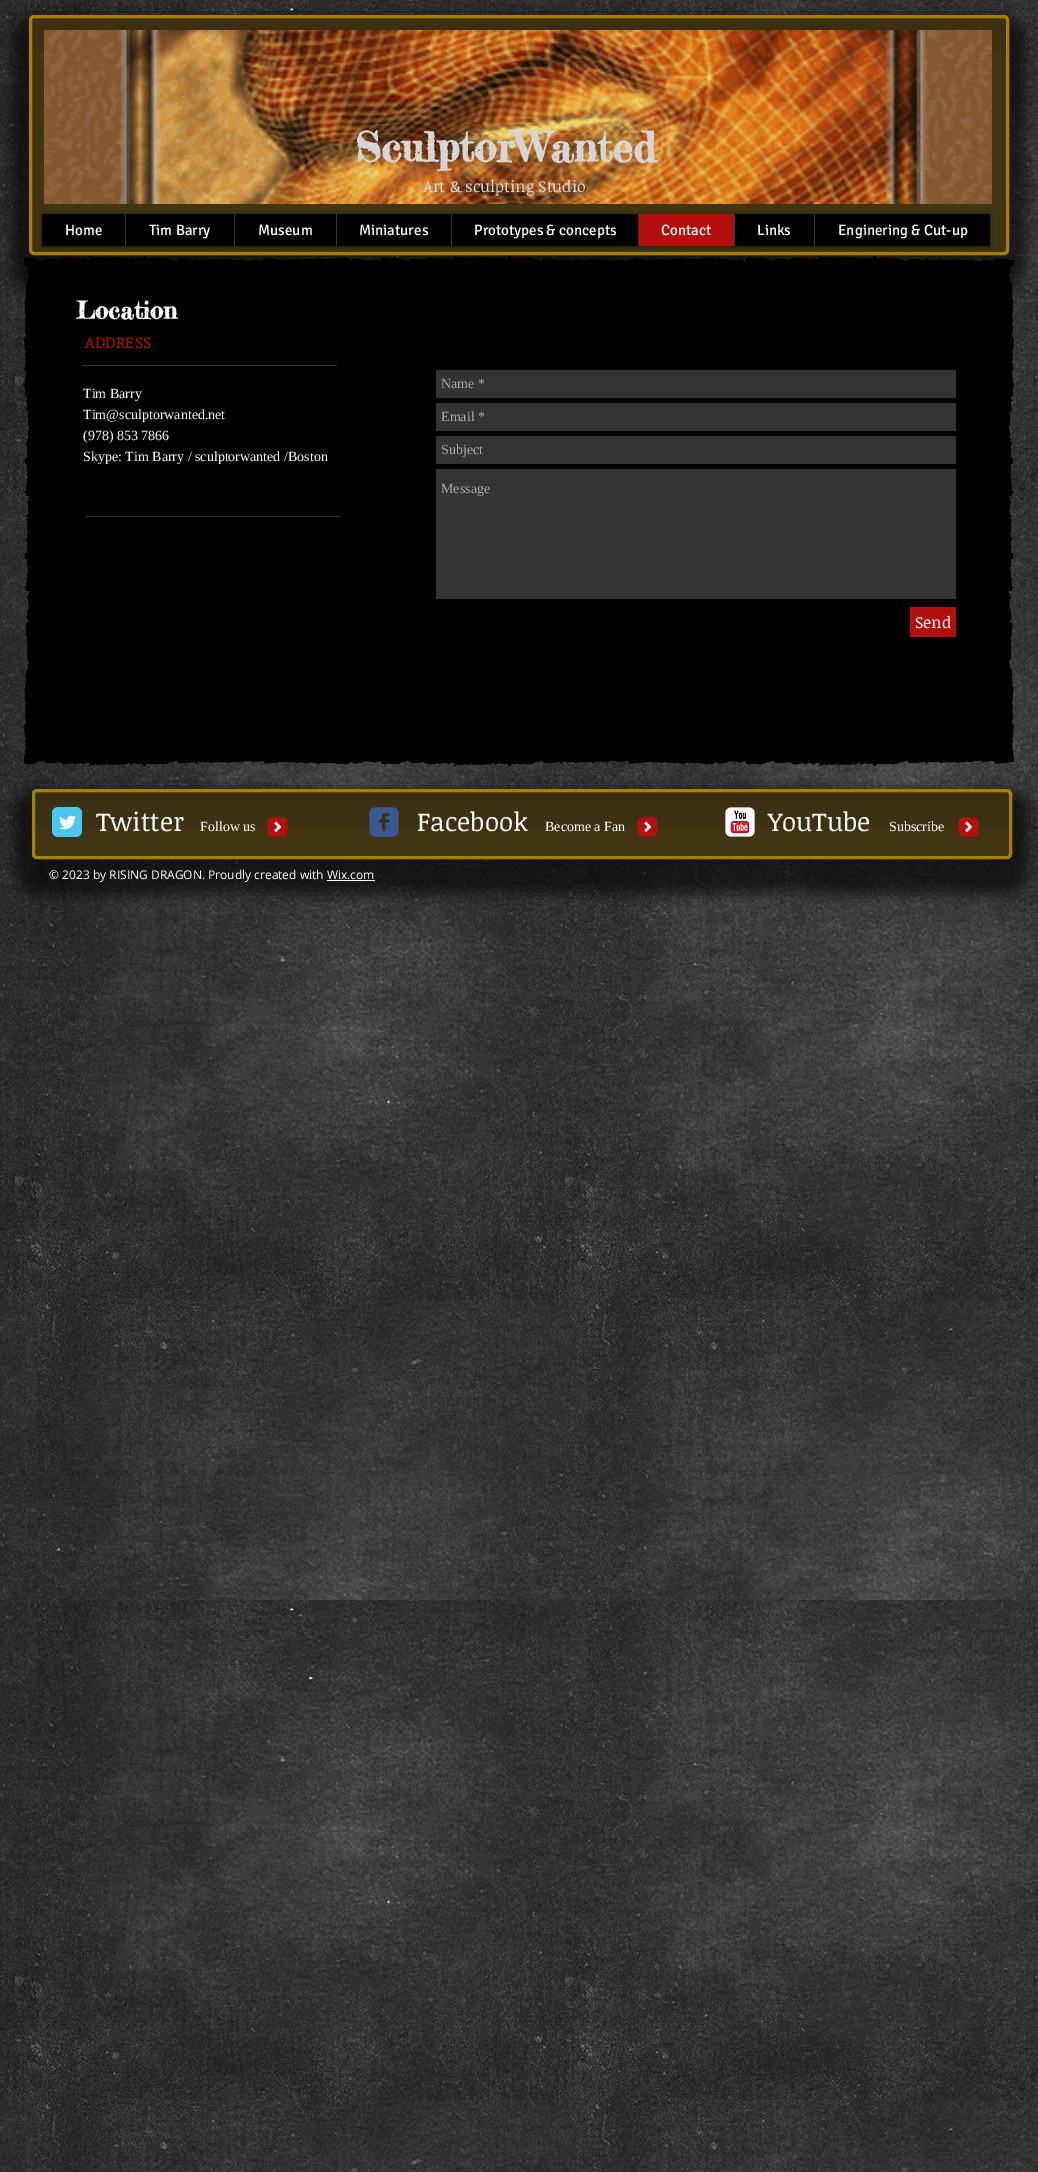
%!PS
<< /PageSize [1038 2172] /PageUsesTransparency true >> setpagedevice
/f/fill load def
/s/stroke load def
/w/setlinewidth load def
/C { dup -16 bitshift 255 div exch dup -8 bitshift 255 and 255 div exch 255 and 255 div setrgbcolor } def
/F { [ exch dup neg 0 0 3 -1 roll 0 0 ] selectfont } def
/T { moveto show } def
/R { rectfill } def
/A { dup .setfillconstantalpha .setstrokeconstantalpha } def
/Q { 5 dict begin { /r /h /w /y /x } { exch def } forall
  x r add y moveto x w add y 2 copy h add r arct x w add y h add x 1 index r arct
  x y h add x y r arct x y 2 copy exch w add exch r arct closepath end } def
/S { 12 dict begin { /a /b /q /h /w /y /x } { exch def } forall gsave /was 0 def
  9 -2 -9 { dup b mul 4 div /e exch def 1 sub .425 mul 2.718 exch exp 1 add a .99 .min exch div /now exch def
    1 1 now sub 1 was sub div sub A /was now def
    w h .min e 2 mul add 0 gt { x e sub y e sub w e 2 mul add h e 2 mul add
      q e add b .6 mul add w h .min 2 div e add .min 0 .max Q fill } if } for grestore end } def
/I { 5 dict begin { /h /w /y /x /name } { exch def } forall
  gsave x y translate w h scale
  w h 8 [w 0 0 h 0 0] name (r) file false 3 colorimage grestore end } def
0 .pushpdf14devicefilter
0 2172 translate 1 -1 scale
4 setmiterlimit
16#FFFFFF C
0 0 1038 2172 R
(1.rgb) 0 0 1038 2172 I
16#000000 C
12 16 1014 274 22 7 .6 S
16#403413 C
29 15 980 240 5 Q f
(2.rgb) 32 20 974 33 I
16#A87F06 C
3 w
30.5 16.5 977 237 3.5 Q s
(3.rgb) 44 30 948 174 I
/FrederickatheGreat-Bold 41 F
16#D6D6D6 C
(SculptorWanted) 355 162 T
/NoticiaText-Regular 16 F
(Art & sculpting Studio) 423 192 T
16#000000 C
42 215 948 32 0 2 .6 S
42 214 948 32 R
/Signika-Regular 15 F
16#FFFFFF C
(Home) 65 235 T
16#333333 C
125 214 1 32 R
16#FFFFFF C
(Tim Barry) 149 235 T
16#333333 C
234 214 1 32 R
16#FFFFFF C
(Museum) 258 235 T
16#333333 C
336 214 1 32 R
16#FFFFFF C
(Miniatures) 359 235 T
16#333333 C
451 214 1 32 R
16#FFFFFF C
(Prototypes & concepts) 474 235 T
16#B20F0C C
639 214 95 32 R
16#333333 C
638 214 1 32 R
16#FFFFFF C
(Contact) 661 235 T
16#333333 C
734 214 1 32 R
16#FFFFFF C
(Links) 757 235 T
16#333333 C
814 214 1 32 R
16#FFFFFF C
(Enginering & Cut-up) 838 235 T
16#000000 C
32 266 974 490 R
(4.rgb) 24 256 990 10 I
(5.rgb) 24 756 990 10 I
(6.rgb) 24 266 8 490 I
(7.rgb) 1006 266 8 490 I
/FrederickatheGreat-Bold 24 F
16#FFFFFF C
(Location) 76 319 T
/NoticiaText-Regular 16 F
16#B20F0C C
(ADDRESS) 85 348 T
16#333333 C
82 365 255 1 R
/LiberationSerif-Regular 14 F
16#FFFFFF C
(Tim Barry) 83 398 T
(Tim@sculptorwanted.net) 83 419 T
(\(978\) 853 7866) 83 440 T
(Skype: Tim Barry / sculptorwanted /Boston) 83 461 T
16#333333 C
436 370 520 28 R
16#A9A9A9 C
(Name *) 441 388 T
16#333333 C
436 403 520 28 R
16#A9A9A9 C
(Email *) 441 421 T
16#333333 C
436 436 520 28 R
16#A9A9A9 C
(Subject) 441 454 T
16#333333 C
436 469 520 130 R
16#A9A9A9 C
(Message) 441 493 T
16#B20F0C C
910 607 46 30 R
/NoticiaText-Regular 16 F
16#FFFFFF C
(Send) 915 628 T
16#333333 C
85 516 255 1 R
16#000000 C
15 790 1014 104 22 7 .6 S
16#403413 C
32 789 980 70 5 Q f
(2.rgb) 35 794 974 33 I
16#A87F06 C
33.5 790.5 977 67 3.5 Q s
(8.rgb) 52 807 30 30 I
/NoticiaText-Regular 26 F
16#FFFFFF C
(Twitter) 96 831 T
/LiberationSerif-Regular 14 F
(Follow us) 200 831 T
(9.rgb) 267 817 21 20 I
(10.rgb) 369 807 30 30 I
/NoticiaText-Regular 26 F
(Facebook) 417 831 T
/LiberationSerif-Regular 14 F
(Become a Fan) 545 831 T
(9.rgb) 637 817 21 20 I
(11.rgb) 725 807 30 30 I
/NoticiaText-Regular 26 F
(YouTube) 768 831 T
/LiberationSerif-Regular 14 F
(Subscribe) 889 831 T
(9.rgb) 958 817 21 20 I
/OpenSans-Regular 12 F
(© 2023 by RISING DRAGON. Proudly created with Wix.com) 49 879 T
327 880 48 1 R
.poppdf14devicefilter showpage
